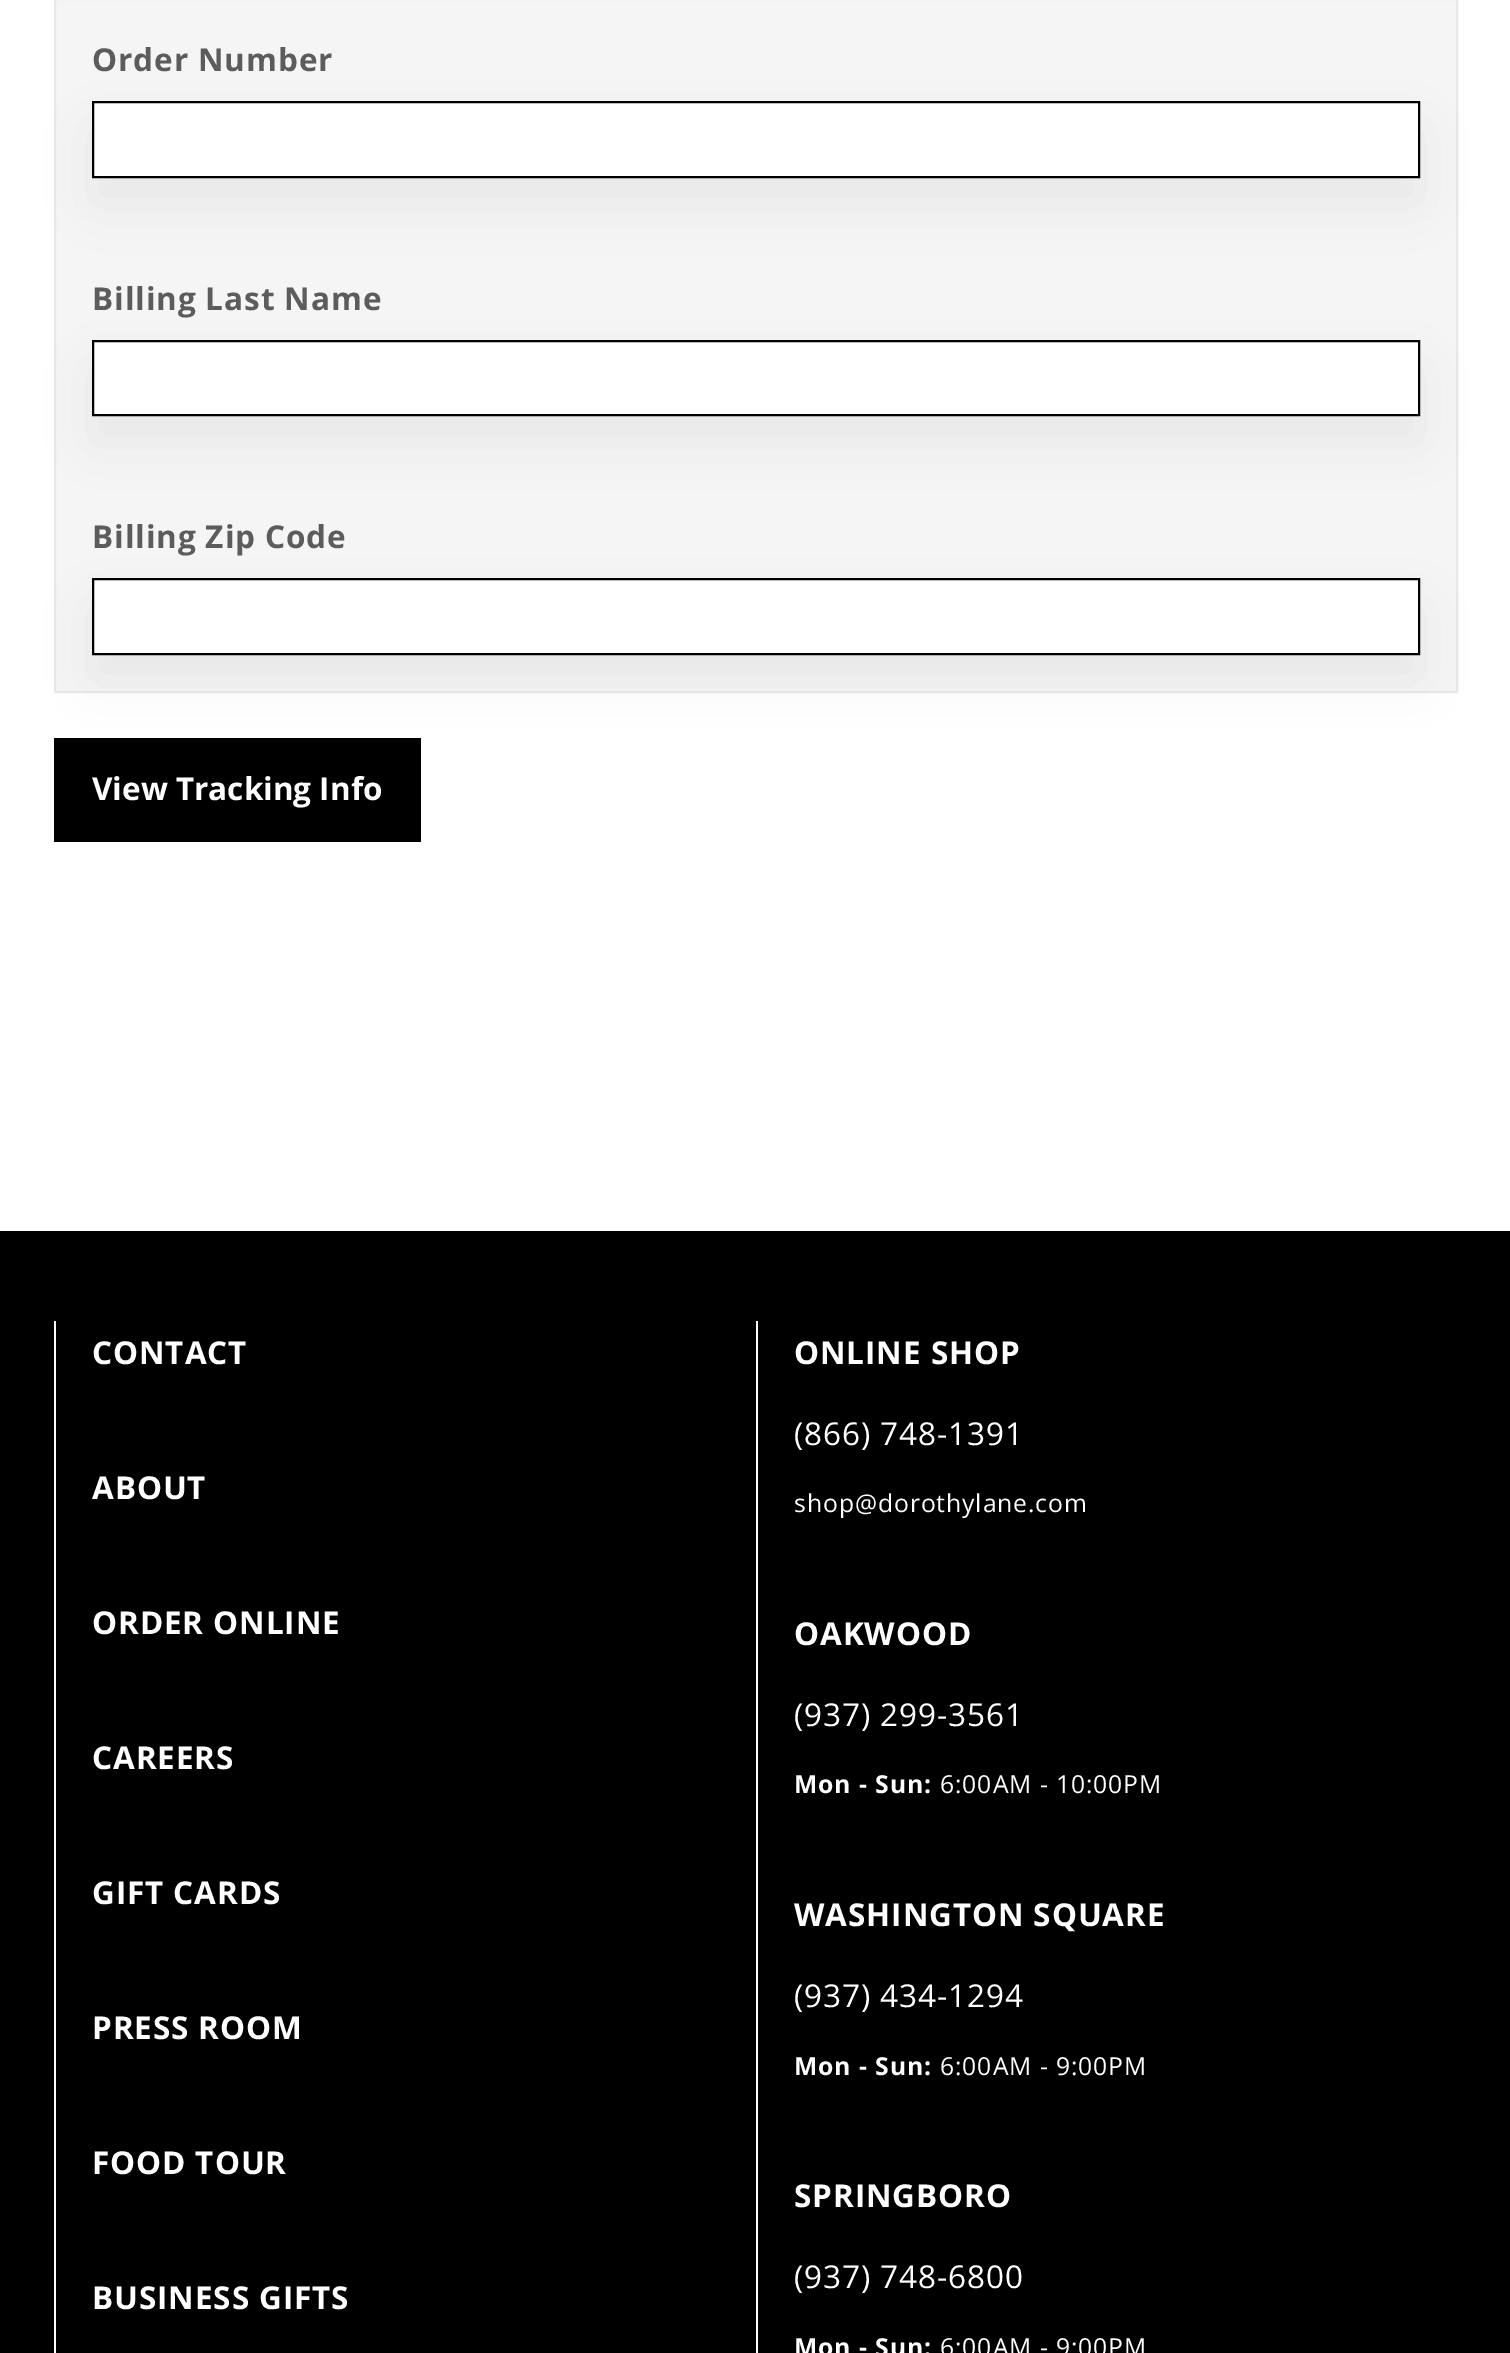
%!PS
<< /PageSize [1510 2353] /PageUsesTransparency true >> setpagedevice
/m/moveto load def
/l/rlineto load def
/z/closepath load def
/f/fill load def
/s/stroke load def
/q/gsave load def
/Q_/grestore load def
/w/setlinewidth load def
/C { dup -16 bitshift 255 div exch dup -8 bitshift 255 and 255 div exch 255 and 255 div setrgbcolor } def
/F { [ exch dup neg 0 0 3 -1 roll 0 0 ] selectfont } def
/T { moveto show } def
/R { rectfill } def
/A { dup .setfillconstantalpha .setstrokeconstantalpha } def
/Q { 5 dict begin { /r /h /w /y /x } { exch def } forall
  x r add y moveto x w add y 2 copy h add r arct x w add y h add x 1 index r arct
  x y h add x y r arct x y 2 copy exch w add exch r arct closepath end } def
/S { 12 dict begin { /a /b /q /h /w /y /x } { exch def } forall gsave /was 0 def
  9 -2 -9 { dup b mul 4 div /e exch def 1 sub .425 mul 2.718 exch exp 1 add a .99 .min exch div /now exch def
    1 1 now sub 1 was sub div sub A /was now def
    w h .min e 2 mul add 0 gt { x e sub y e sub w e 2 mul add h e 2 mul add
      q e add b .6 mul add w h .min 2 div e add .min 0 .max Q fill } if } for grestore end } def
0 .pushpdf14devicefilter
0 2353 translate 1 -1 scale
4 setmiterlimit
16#FFFFFF C
0 0 1510 2353 R
16#F5F5F5 C
55 -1 m 1402 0 l 0 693 l -1402 0 l z q f Q_
16#E8E8E8 C
2 w
s
16#000000 C
92 128 1328 77 0 28 .05 S
16#FFFFFF C
93 102 m 1326 0 l 0 75 l -1326 0 l z q f Q_
16#000000 C
s
/OpenSans-Bold 31.5 F
16#5C5C5C C
92 71 m .9 0 (Order Number) ashow
16#000000 C
92 367 1328 76 0 28 .05 S
16#FFFFFF C
93 341 m 1326 0 l 0 74 l -1326 0 l z q f Q_
16#000000 C
s
16#5C5C5C C
92 310 m .9 0 (Billing Last Name) ashow
16#000000 C
92 605 1328 77 0 28 .05 S
16#FFFFFF C
93 579 m 1326 0 l 0 75 l -1326 0 l z q f Q_
16#000000 C
s
16#5C5C5C C
92 548 m .9 0 (Billing Zip Code) ashow
16#000000 C
54 738 367 104 R
16#FFFFFF C
(View Tracking Info) 92 800 T
16#000000 C
0 1231 1510 1122 R
16#FFFFFF C
54 1321 2 1032 R
92 1364 m .9 0 (CONTACT) ashow
92 1499 m .9 0 (ABOUT) ashow
92 1634 m .9 0 (ORDER ONLINE) ashow
92 1769 m .9 0 (CAREERS) ashow
92 1904 m .9 0 (GIFT CARDS) ashow
92 2039 m .9 0 (PRESS ROOM) ashow
92 2174 m .9 0 (FOOD TOUR) ashow
92 2309 m .9 0 (BUSINESS GIFTS) ashow
756 1321 2 1032 R
794 1364 m .9 0 (ONLINE SHOP) ashow
/OpenSans-Regular 31.5 F
794 1445 m .9 0 (\(866\) 748-1391) ashow
/OpenSans-Regular 24.75 F
794 1512 m .9 0 (shop@dorothylane.com) ashow
/OpenSans-Bold 31.5 F
794 1645 m .9 0 (OAKWOOD) ashow
/OpenSans-Regular 31.5 F
794 1726 m .9 0 (\(937\) 299-3561) ashow
/OpenSans-Bold 24.75 F
794 1793 m .9 0 (Mon - Sun:) ashow
/OpenSans-Regular 24.75 F
940 1793 m .9 0 (6:00AM - 10:00PM) ashow
/OpenSans-Bold 31.5 F
794 1926 m .9 0 (WASHINGTON SQUARE) ashow
/OpenSans-Regular 31.5 F
794 2007 m .9 0 (\(937\) 434-1294) ashow
/OpenSans-Bold 24.75 F
794 2075 m .9 0 (Mon - Sun:) ashow
/OpenSans-Regular 24.75 F
940 2075 m .9 0 (6:00AM - 9:00PM) ashow
/OpenSans-Bold 31.5 F
794 2207 m .9 0 (SPRINGBORO) ashow
/OpenSans-Regular 31.5 F
794 2288 m .9 0 (\(937\) 748-6800) ashow
/OpenSans-Bold 24.75 F
794 2356 m .9 0 (Mon - Sun:) ashow
/OpenSans-Regular 24.75 F
940 2356 m .9 0 (6:00AM - 9:00PM) ashow
.poppdf14devicefilter showpage
